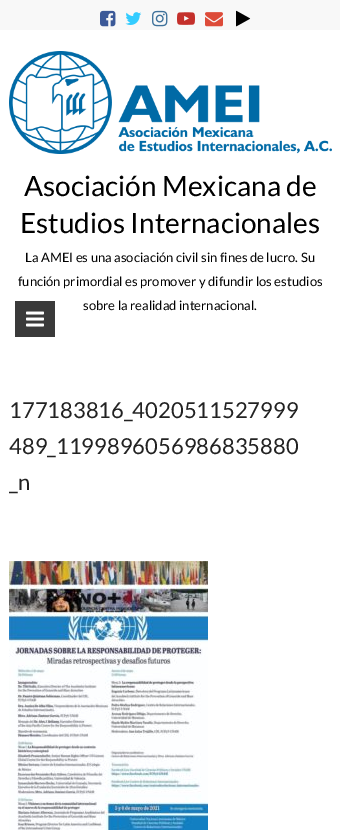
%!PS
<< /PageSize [340 830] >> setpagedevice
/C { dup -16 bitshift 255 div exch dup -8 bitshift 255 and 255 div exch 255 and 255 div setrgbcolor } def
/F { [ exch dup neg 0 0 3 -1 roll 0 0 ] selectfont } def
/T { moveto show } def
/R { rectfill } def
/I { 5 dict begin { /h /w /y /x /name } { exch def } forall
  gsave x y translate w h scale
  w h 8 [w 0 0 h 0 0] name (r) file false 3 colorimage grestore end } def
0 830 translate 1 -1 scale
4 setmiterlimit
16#FFFFFF C
0 0 340 830 R
16#F8F8F8 C
0 0 340 30 R
(1.rgb) 100 10 16 17 I
(2.rgb) 125 12 17 13 I
(3.rgb) 152 10 16 17 I
(4.rgb) 177 12 18 13 I
(5.rgb) 205 12 18 15 I
(6.rgb) 236 10 15 17 I
(7.rgb) 9 51 323 103 I
/Lato-Regular 28 F
16#000000 C
(Asociación Mexicana de) 24 196 T
(Estudios Internacionales) 20 233 T
/Lato-Regular 13 F
(La AMEI es una asociación civil sin fines de lucro. Su) 25 262 T
(función primordial es promover y difundir los estudios) 18 286 T
(sobre la realidad internacional.) 83 310 T
16#3A3A3A C
15 301 40 36 R
(8.rgb) 26 311 18 16 I
/Lato-Regular 22 F
16#222222 C
(177183816_4020511527999) 9 418 T
(489_1199896056986835880) 9 454 T
(_n) 9 490 T
(9.rgb) 9 561 199 269 I
showpage
